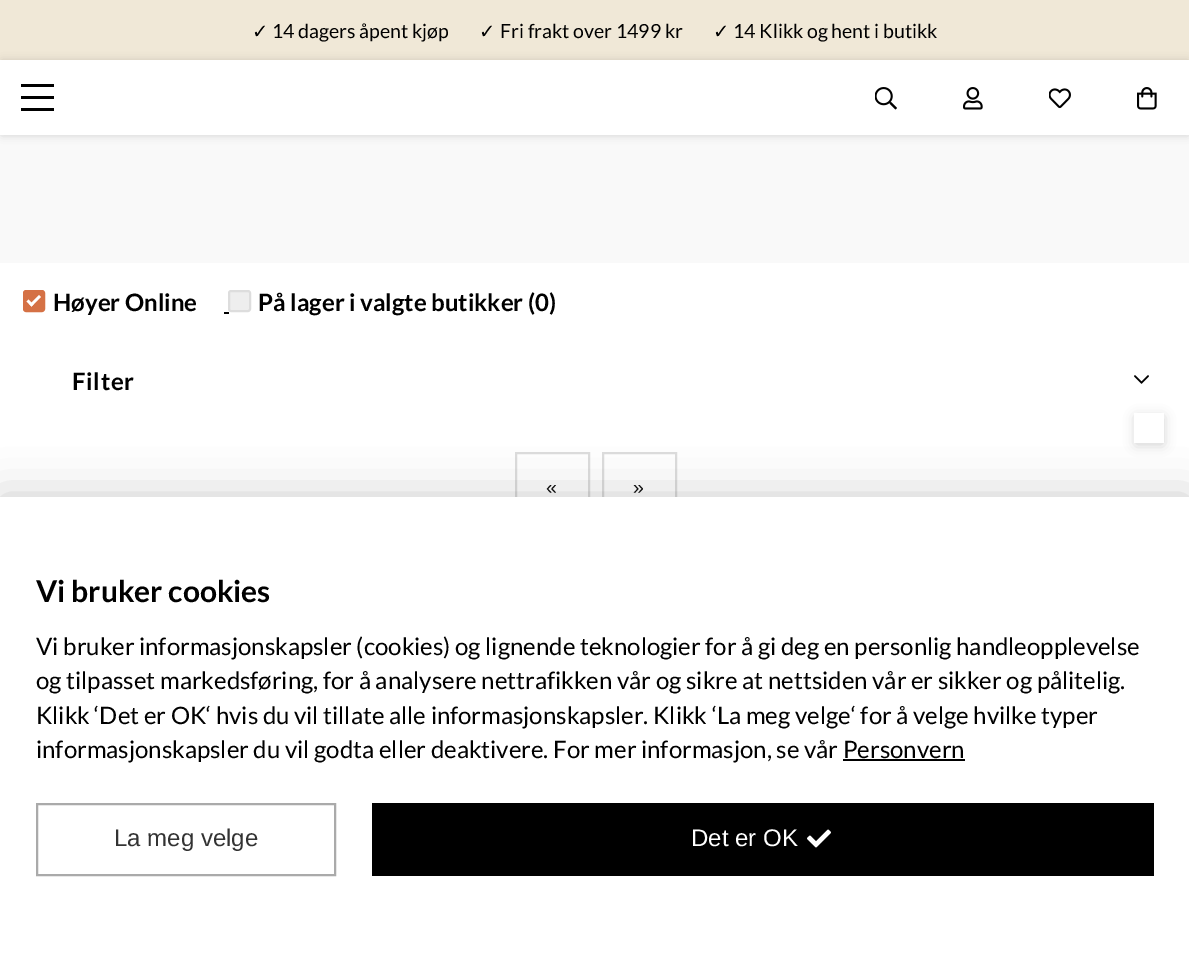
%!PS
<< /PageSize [1189 966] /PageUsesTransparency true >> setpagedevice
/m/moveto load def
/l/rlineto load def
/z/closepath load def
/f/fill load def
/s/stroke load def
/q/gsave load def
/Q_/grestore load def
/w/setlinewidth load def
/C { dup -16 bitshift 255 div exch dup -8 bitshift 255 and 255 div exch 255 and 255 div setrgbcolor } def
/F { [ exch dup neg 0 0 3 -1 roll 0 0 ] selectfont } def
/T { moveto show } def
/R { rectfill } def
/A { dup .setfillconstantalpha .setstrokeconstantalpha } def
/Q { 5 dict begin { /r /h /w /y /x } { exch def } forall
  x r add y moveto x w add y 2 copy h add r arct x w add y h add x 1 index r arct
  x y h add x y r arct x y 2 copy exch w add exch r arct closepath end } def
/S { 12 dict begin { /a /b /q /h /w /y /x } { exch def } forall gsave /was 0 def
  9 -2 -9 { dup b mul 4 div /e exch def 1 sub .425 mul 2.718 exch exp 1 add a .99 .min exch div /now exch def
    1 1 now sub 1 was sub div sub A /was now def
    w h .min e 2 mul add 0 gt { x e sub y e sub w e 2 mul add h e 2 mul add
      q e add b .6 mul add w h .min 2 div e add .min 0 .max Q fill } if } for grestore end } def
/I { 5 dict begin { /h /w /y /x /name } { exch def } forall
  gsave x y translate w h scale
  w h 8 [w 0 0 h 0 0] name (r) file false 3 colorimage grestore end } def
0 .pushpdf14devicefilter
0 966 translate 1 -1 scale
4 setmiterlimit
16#FFFFFF C
0 0 1189 966 R
16#F0E8D7 C
0 0 1189 60 R
/DejaVuSans-Regular 19.5 F
16#000000 C
(✓) 252 38 T
/Lato-Regular 19.5 F
(14 dagers åpent kjøp) 272 38 T
/DejaVuSans-Regular 19.5 F
(✓) 479 38 T
/Lato-Regular 19.5 F
(Fri frakt over 1499 kr) 500 38 T
/DejaVuSans-Regular 19.5 F
(✓) 713 38 T
/Lato-Regular 19.5 F
(14 Klikk og hent i butikk) 733 38 T
16#F9F9F9 C
0 135 1189 128 R
q
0 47 m 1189 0 l 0 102 l -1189 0 l z 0 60 m 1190 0 l 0 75 l -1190 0 l z eoclip newpath
16#000000 C
2 62 1186 72 0 4.5 .2 S
Q_
16#000000 C
21 96 33 3 R
21 84 33 3 R
21 108 33 3 R
(1.rgb) 875 87 22 23 I
(2.rgb) 963 87 20 23 I
(3.rgb) 1049 88 22 21 I
(4.rgb) 1137 87 20 23 I
16#D57145 C
24 291 20 20 2 Q q f Q_
2 w
s
16#FFFFFF C
39 295 m 2 2 l -9.5 9.5 l -2 -2 l z f
28.5 299.5 m 5 5 l -2 2 l -5 -5 l z f
/Lato-Bold 24 F
16#000000 C
(Høyer Online) 53 311 T
224 312 5 2 R
16#EEEEEE C
229 291 21 20 2 Q q f Q_
16#DDDDDD C
s
16#000000 C
(På lager i valgte butikker \(0\)) 258 311 T
72 390 m .75 0 (Filter) ashow
(5.rgb) 1134 375 15 9 I
1136 417 27 27 0 6 .2 S
16#FFFFFF C
1134 413 30 30 R
16#DDDDDD C
516 453 73 73 rectstroke
/LiberationSans-Regular 19.5 F
16#111111 C
(«) 546 494 T
16#DDDDDD C
603 453 73 73 rectstroke
16#111111 C
(») 633 494 T
16#000000 C
0 497 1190 469 0 22.5 .2 S
16#FFFFFF C
0 497 1189 469 R
/Lato-Bold 30 F
16#000000 C
(Vi bruker cookies) 36 602 T
/Lato-Regular 24 F
(Vi bruker informasjonskapsler \(cookies\) og lignende teknologier for å gi deg en personlig handleopplevelse) 36 655 T
(og tilpasset markedsføring, for å analysere nettrafikken vår og sikre at nettsiden vår er sikker og pålitelig.) 36 689 T
(Klikk ‘Det er OK‘ hvis du vil tillate alle informasjonskapsler. Klikk ‘La meg velge‘ for å velge hvilke typer) 36 724 T
(informasjonskapsler du vil godta eller deaktivere. For mer informasjon, se vår Personvern) 36 758 T
843 759 122 2 R
16#AAAAAA C
37 804 298 71 rectstroke
/LiberationSans-Regular 24 F
16#333333 C
(La meg velge) 114 846 T
16#000000 C
372 803 782 73 R
16#FFFFFF C
(Det er OK) 691 846 T
(6.rgb) 807 829 24 19 I
.poppdf14devicefilter showpage
